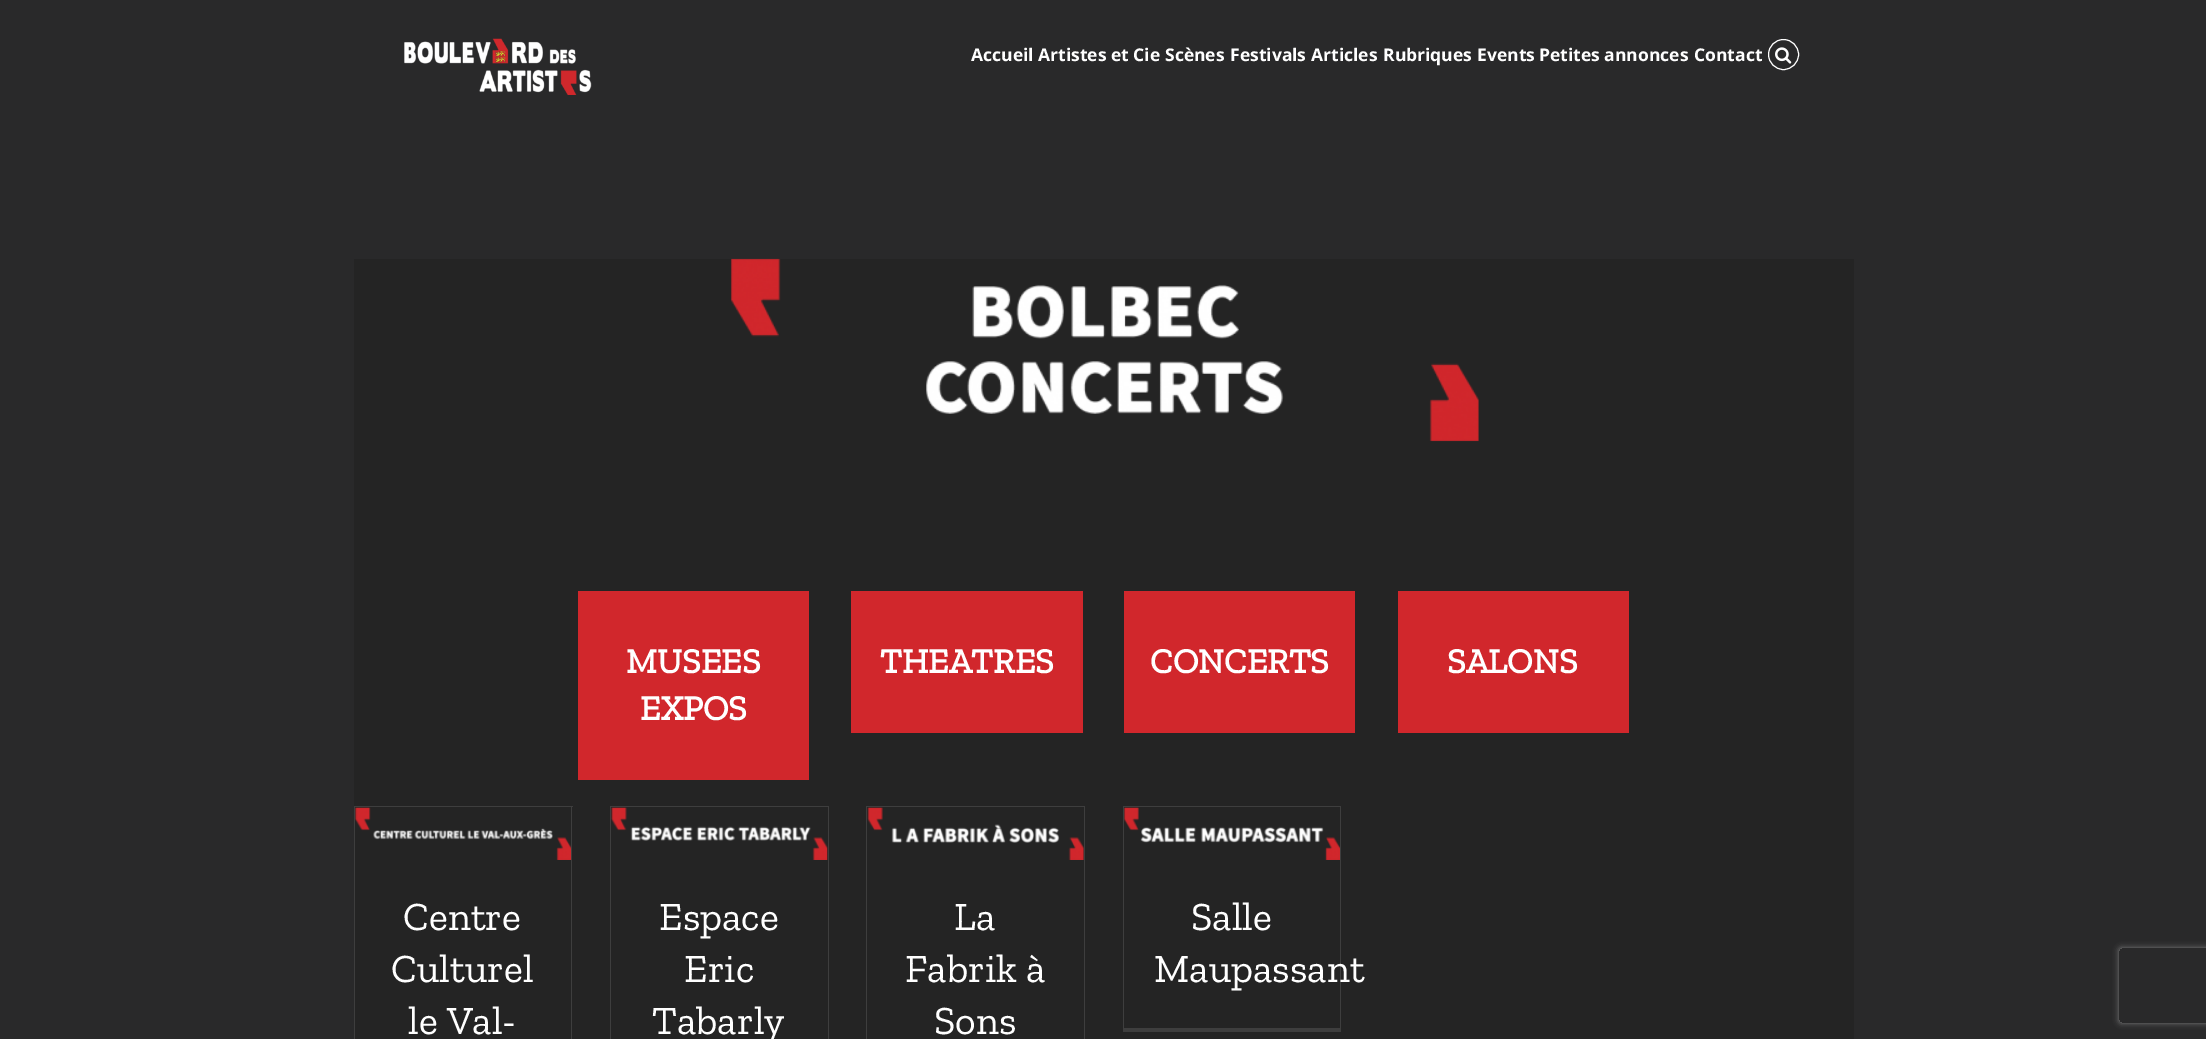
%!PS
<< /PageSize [2206 1039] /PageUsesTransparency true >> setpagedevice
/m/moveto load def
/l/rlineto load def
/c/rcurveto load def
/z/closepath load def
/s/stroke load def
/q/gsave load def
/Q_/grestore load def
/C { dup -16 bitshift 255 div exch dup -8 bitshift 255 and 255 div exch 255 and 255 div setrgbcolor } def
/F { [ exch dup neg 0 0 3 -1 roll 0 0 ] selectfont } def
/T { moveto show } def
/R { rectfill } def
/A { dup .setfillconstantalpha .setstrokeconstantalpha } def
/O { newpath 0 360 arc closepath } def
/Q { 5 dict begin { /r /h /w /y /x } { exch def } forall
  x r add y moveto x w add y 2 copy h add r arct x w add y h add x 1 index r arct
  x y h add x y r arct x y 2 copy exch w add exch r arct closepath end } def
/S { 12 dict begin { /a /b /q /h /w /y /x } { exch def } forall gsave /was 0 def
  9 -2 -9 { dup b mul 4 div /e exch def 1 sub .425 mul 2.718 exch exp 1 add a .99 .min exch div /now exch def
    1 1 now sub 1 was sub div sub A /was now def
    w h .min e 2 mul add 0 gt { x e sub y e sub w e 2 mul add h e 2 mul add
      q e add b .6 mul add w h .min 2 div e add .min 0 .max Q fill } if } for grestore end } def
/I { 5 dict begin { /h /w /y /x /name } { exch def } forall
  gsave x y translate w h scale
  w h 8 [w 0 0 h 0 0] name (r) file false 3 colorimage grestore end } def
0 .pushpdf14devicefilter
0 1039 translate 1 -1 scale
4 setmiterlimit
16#29292A C
0 0 2206 1039 R
(1.rgb) 404 38 188 57 I
/OpenSans-Bold 17.5 F
16#FFFFFF C
(Accueil) 971 61 T
(Artistes et Cie) 1038 61 T
(Scènes) 1165 61 T
(Festivals) 1230 61 T
(Articles) 1311 61 T
(Rubriques) 1383 61 T
(Events) 1477 61 T
(Petites annonces) 1539 61 T
(Contact) 1694 61 T
1783.5 54.5 15 O s
(2.rgb) 1775 47 17 17 I
16#242424 C
354 259 1500 697 R
(3.rgb) 730 258 749 184 I
16#D1272C C
578 591 231 189 R
/ZillaSlab-Bold 35 F
16#FFFFFF C
(MUSEES) 626 673 T
(EXPOS) 640 720 T
16#D1272C C
851 591 232 142 R
16#FFFFFF C
(THEATRES) 880 673 T
16#D1272C C
1124 591 231 142 R
16#FFFFFF C
(CONCERTS) 1150 673 T
16#D1272C C
1398 591 231 142 R
16#FFFFFF C
(SALONS) 1447 673 T
16#242424 C
355 956 1499 83 R
16#3E3E3E C
354 806 219 1 R
571 806 1 233 R
354 806 1 233 R
(4.rgb) 355 807 217 53 I
/ZillaSlab-Regular 40 F
16#FFFFFF C
(Centre) 403 930 T
(Culturel) 391 982 T
(le Val-) 408 1034 T
16#3E3E3E C
610 806 219 1 R
828 806 1 233 R
610 806 1 233 R
(5.rgb) 611 807 217 53 I
16#FFFFFF C
(Espace) 659 930 T
(Eric) 684 982 T
(Tabarly) 652 1034 T
16#3E3E3E C
866 806 219 1 R
1084 806 1 233 R
866 806 1 233 R
(6.rgb) 867 807 217 53 I
16#FFFFFF C
(La) 954 930 T
(Fabrik à) 905 982 T
(Sons) 934 1034 T
16#3E3E3E C
1123 806 218 1 R
1340 806 1 225 R
1123 1028 218 4 R
1123 806 1 225 R
(7.rgb) 1124 807 216 53 I
16#FFFFFF C
(Salle) 1191 930 T
(Maupassant) 1154 982 T
q
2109 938 m 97 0 l 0 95 l -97 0 l z 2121.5 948 m 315 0 l 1.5 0 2.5 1 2.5 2.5 c 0 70 l 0 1.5 -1 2.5 -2.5 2.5 c -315 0 l -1.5 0 -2.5 -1 -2.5 -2.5 c 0 -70 l 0 -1.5 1 -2.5 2.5 -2.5 c z eoclip newpath
16#808080 C
2119 948 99 75 2.5 3 1 S
Q_
.poppdf14devicefilter showpage
